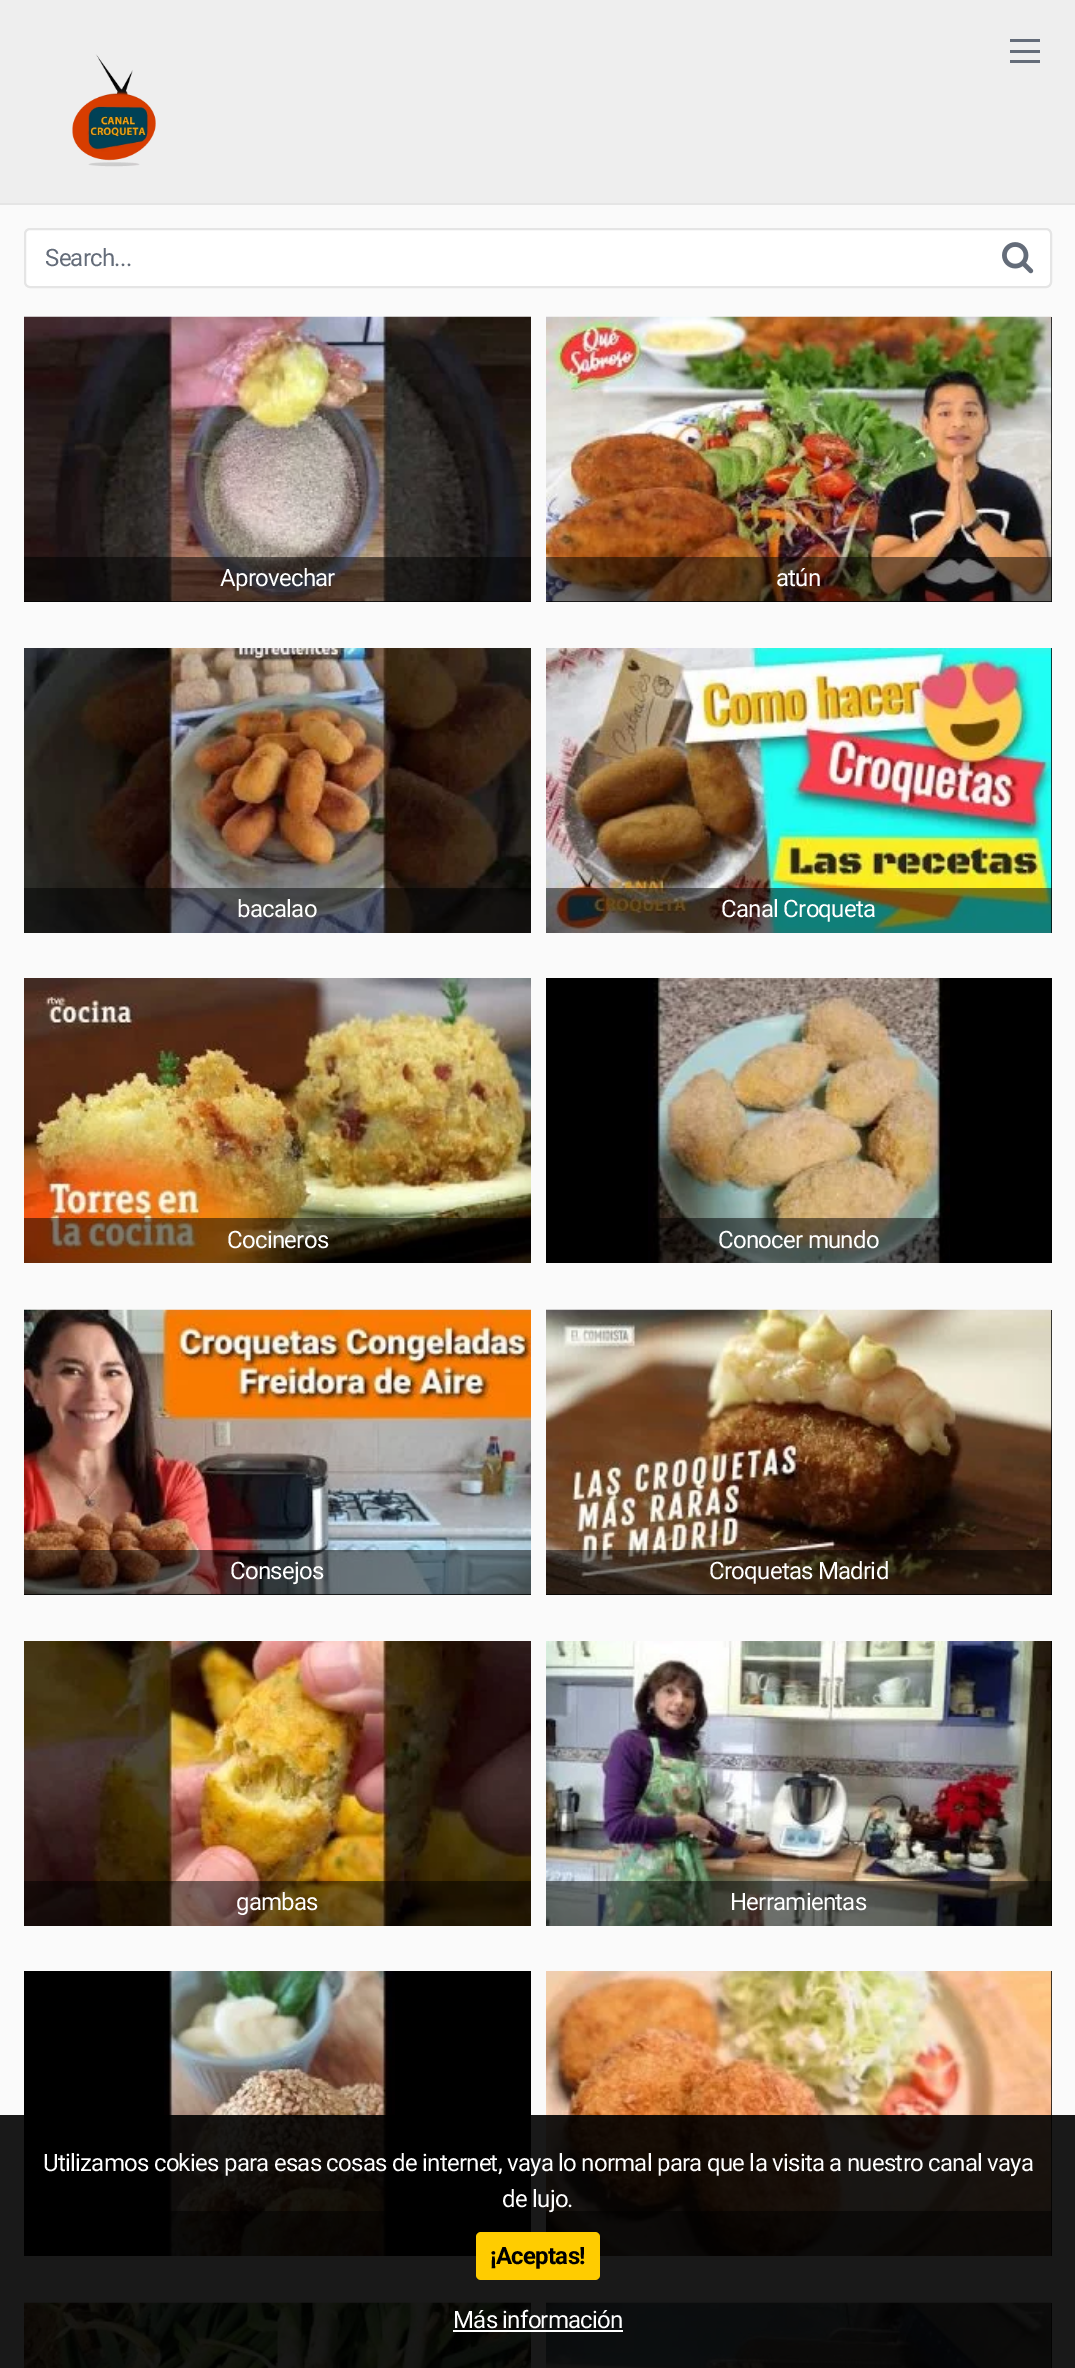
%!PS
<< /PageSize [1075 2368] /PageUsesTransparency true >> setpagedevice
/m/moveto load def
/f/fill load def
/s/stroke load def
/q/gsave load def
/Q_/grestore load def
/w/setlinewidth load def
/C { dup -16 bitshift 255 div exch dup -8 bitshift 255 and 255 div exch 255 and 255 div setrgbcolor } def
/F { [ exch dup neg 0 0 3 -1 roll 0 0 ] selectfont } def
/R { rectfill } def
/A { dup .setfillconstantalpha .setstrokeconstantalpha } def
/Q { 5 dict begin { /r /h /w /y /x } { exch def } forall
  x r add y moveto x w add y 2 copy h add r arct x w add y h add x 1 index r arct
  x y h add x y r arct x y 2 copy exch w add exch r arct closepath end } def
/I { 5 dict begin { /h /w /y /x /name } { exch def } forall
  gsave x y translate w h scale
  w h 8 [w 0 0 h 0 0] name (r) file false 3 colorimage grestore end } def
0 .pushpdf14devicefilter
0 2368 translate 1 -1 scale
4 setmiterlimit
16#FAFAFA C
0 0 1075 2368 R
16#EEEEEE C
0 0 1075 203 R
16#E5E5E5 C
0 203 1075 2 R
16#646C79 C
1010 39 30 3 R
1010 50 30 3 R
1010 60 30 3 R
(1.rgb) 72 54 84 113 I
16#FFFFFF C
25 229 1026 58 5 Q q f Q_
16#E5E5E5 C
2 w
s
/Roboto-Regular 24 F
16#646C79 C
45 266 m -.75 0 (Search...) ashow
(2.rgb) 1002 242 32 32 I
16#000000 C
24 601 507 1 R
(3.rgb) 24 316 507 286 I
0.5 A
24 557 507 45 R
1 A
16#FFFFFF C
220 586 m -.75 0 (Aprovechar) ashow
16#000000 C
546 317 506 285 R
(4.rgb) 546 316 506 286 I
0.5 A
546 557 506 45 R
1 A
16#FFFFFF C
776 586 m -.75 0 (atún) ashow
(5.rgb) 24 648 507 285 I
0.5 A
16#000000 C
24 888 507 45 R
1 A
16#FFFFFF C
237 917 m -.75 0 (bacalao) ashow
16#000000 C
1051 648 1 285 R
(6.rgb) 546 648 506 285 I
0.5 A
546 888 506 45 R
1 A
16#FFFFFF C
721 917 m -.75 0 (Canal Croqueta) ashow
(7.rgb) 24 978 507 285 I
0.5 A
16#000000 C
24 1218 507 45 R
1 A
16#FFFFFF C
227 1248 m -.75 0 (Cocineros) ashow
16#000000 C
546 978 506 285 R
(8.rgb) 648 978 302 285 I
0.5 A
654 1218 295 45 R
1 A
16#FFFFFF C
718 1248 m -.75 0 (Conocer mundo) ashow
16#000000 C
24 1594 507 1 R
(9.rgb) 24 1309 507 286 I
0.5 A
24 1550 507 45 R
1 A
16#FFFFFF C
230 1579 m -.75 0 (Consejos) ashow
16#000000 C
546 1310 506 285 R
(10.rgb) 546 1309 506 286 I
0.5 A
546 1550 506 45 R
1 A
16#FFFFFF C
709 1579 m -.75 0 (Croquetas Madrid) ashow
(11.rgb) 24 1641 507 285 I
0.5 A
16#000000 C
24 1881 507 45 R
1 A
16#FFFFFF C
236 1910 m -.75 0 (gambas) ashow
16#000000 C
1051 1641 1 285 R
(12.rgb) 546 1641 506 285 I
0.5 A
546 1881 506 45 R
1 A
16#FFFFFF C
730 1910 m -.75 0 (Herramientas) ashow
16#000000 C
24 1971 507 285 R
(13.rgb) 164 1971 231 285 I
0.5 A
167 2211 228 45 R
1 A
1051 1971 1 285 R
(14.rgb) 546 1971 506 285 I
0.5 A
546 2211 506 45 R
1 A
(15.rgb) 24 2302 507 66 I
1051 2303 1 65 R
(16.rgb) 546 2302 506 66 I
0.9 A
0 2115 1075 253 R
1 A
16#FFFFFF C
43 2171 m -.75 0 (Utilizamos cokies para esas cosas de internet, vaya lo normal para que la visita a nuestro canal vaya) ashow
502 2207 m -.75 0 (de lujo.) ashow
16#FFCC00 C
476 2232 124 48 5 Q f
/Roboto-Bold 24 F
16#000000 C
490 2264 m -.75 0 (¡Aceptas!) ashow
/Roboto-Regular 24 F
16#FFFFFF C
453 2328 m -.75 0 (Más información) ashow
453 2330 170 2 R
.poppdf14devicefilter showpage
